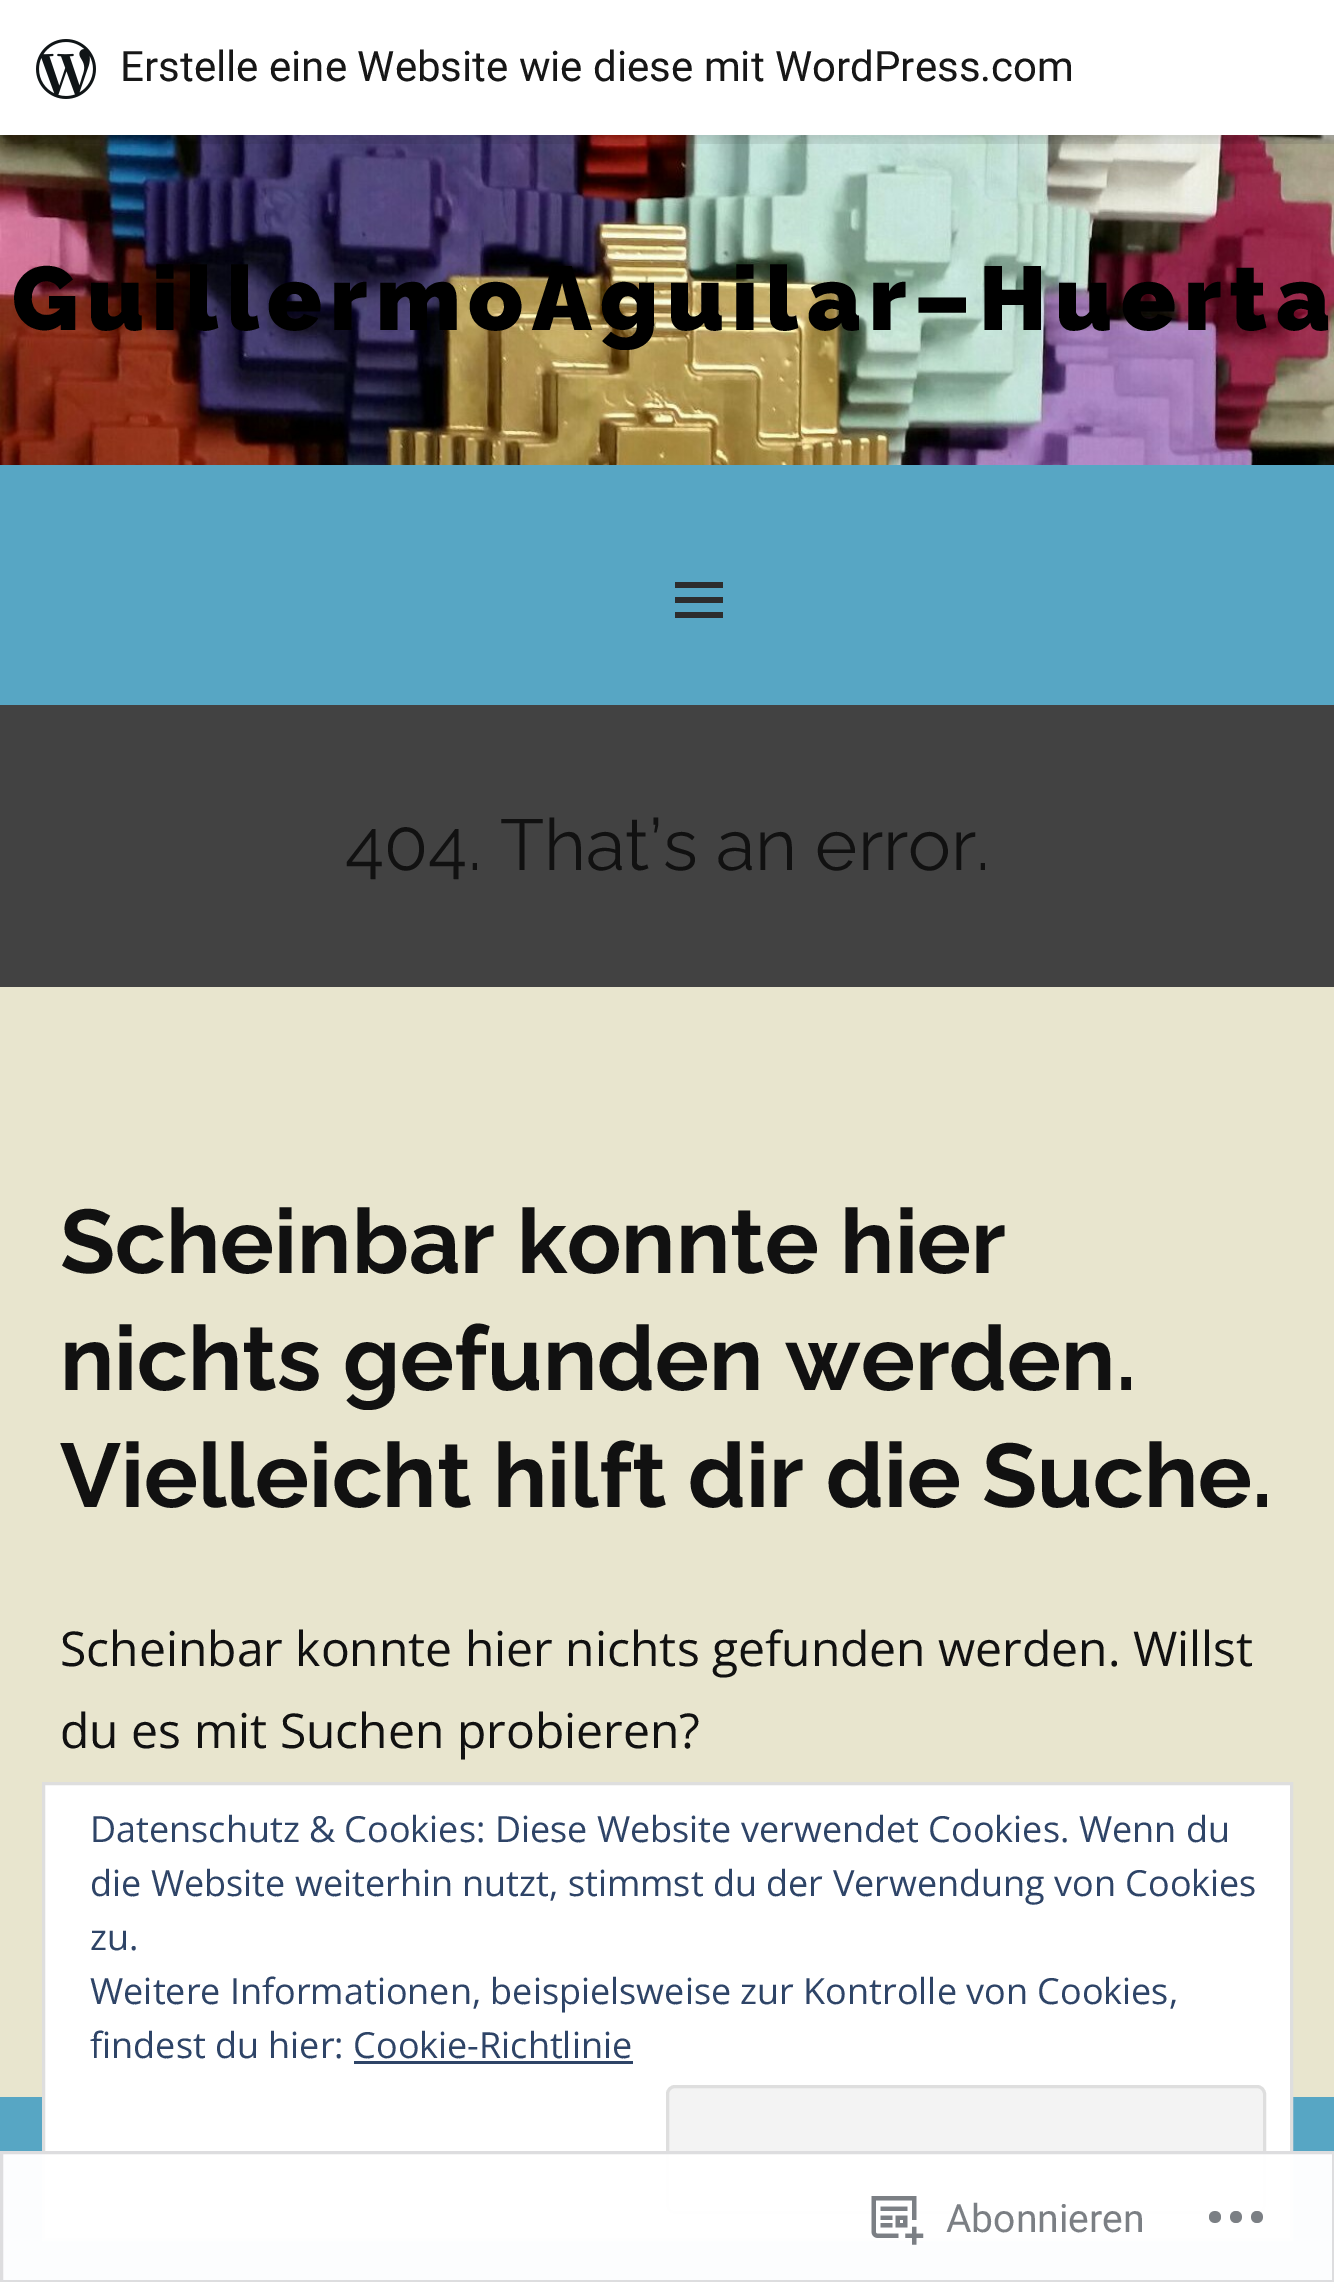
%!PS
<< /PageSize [1334 2282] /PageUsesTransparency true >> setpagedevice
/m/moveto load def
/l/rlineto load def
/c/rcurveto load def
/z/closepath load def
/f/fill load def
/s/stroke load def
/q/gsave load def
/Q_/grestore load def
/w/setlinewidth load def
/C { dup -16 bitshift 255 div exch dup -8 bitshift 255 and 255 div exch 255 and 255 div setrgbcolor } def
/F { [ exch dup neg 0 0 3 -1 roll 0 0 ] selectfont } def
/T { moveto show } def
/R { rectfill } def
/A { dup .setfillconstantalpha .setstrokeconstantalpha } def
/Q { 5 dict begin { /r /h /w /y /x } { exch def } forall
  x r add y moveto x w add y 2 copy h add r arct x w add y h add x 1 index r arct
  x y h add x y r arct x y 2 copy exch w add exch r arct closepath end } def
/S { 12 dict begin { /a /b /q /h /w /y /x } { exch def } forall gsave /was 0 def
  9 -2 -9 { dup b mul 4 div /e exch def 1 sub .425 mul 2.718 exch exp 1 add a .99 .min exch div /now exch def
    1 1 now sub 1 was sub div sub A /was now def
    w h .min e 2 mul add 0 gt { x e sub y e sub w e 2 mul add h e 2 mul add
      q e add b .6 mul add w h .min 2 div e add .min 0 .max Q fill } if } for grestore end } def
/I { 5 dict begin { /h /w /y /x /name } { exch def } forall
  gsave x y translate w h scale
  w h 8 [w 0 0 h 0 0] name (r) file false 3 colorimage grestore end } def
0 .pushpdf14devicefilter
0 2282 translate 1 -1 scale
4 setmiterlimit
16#57A6C4 C
0 0 1334 2282 R
(2.rgb) 0 135 1334 330 I
16#000000 C
0 3 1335 135 0 3 .05 S
0.08 A
3 135 m 0 9 l 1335 0 l 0 -135 l -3 0 l 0 126 l z f
1 A
16#FFFFFF C
0 0 1334 135 R
(1.rgb) 36 39 60 60 I
/Roboto-Regular 42 F
16#171717 C
(Erstelle eine Website wie diese mit WordPress.com) 120 81 T
/Raleway-Black 90 F
16#000000 C
12 330 m -6 0 (G u i l l e r m o A g u i l a r – H u e r t a) ashow
16#2D2D2D C
675 618 m 0 -6 l 48 0 l 0 6 l z 675 582 m 48 0 l 0 6 l -48 0 l z 675 603 m 0 -6 l 48 0 l 0 6 l z f
16#424242 C
0 705 1334 282 R
/Raleway-Regular 72 F
16#111111 C
(404. That’s an error.) 345 870 T
16#E8E5CE C
0 987 1334 1110 R
/Raleway-Bold 90 F
16#111111 C
(Scheinbar konnte hier) 60 1273 T
(nichts gefunden werden.) 60 1390 T
(Vielleicht hilft dir die Suche.) 60 1507 T
/OpenSans-Regular 48 F
(Scheinbar konnte hier nichts gefunden werden. Willst) 60 1666 T
(du es mit Suchen probieren?) 60 1748 T
16#FFFFFF C
43.5 1783.5 m 1248 0 l 0 456 l -1248 0 l z q f Q_
16#DEDEDE C
3 w
s
/OpenSans-Regular 36 F
16#2E4467 C
(Datenschutz & Cookies: Diese Website verwendet Cookies. Wenn du) 90 1842 T
(die Website weiterhin nutzt, stimmst du der Verwendung von Cookies) 90 1896 T
(zu.) 90 1950 T
(Weitere Informationen, beispielsweise zur Kontrolle von Cookies,) 90 2004 T
(findest du hier: Cookie-Richtlinie) 90 2058 T
354 2061 279 3 R
16#F3F3F3 C
667.5 2086.5 597 126 7.5 Q q f Q_
16#DEDEDE C
s
0.98 A
16#FFFFFF C
0 2151 1334 131 R
16#DCDCDE C
1.5 2152.5 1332 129 rectstroke
1 A
(3.rgb) 871 2196 53 49 I
/Roboto-Regular 39 F
16#7B7F84 C
(Abonnieren) 946 2232 T
1221 2217 m 0 8 -12 8 -12 0 c 0 -8 12 -8 12 0 c z 1257 2211 m -8 0 -8 12 0 12 c 8 0 8 -12 0 -12 c z 1236 2211 m -8 0 -8 12 0 12 c 8 0 8 -12 0 -12 c z f
.poppdf14devicefilter showpage
